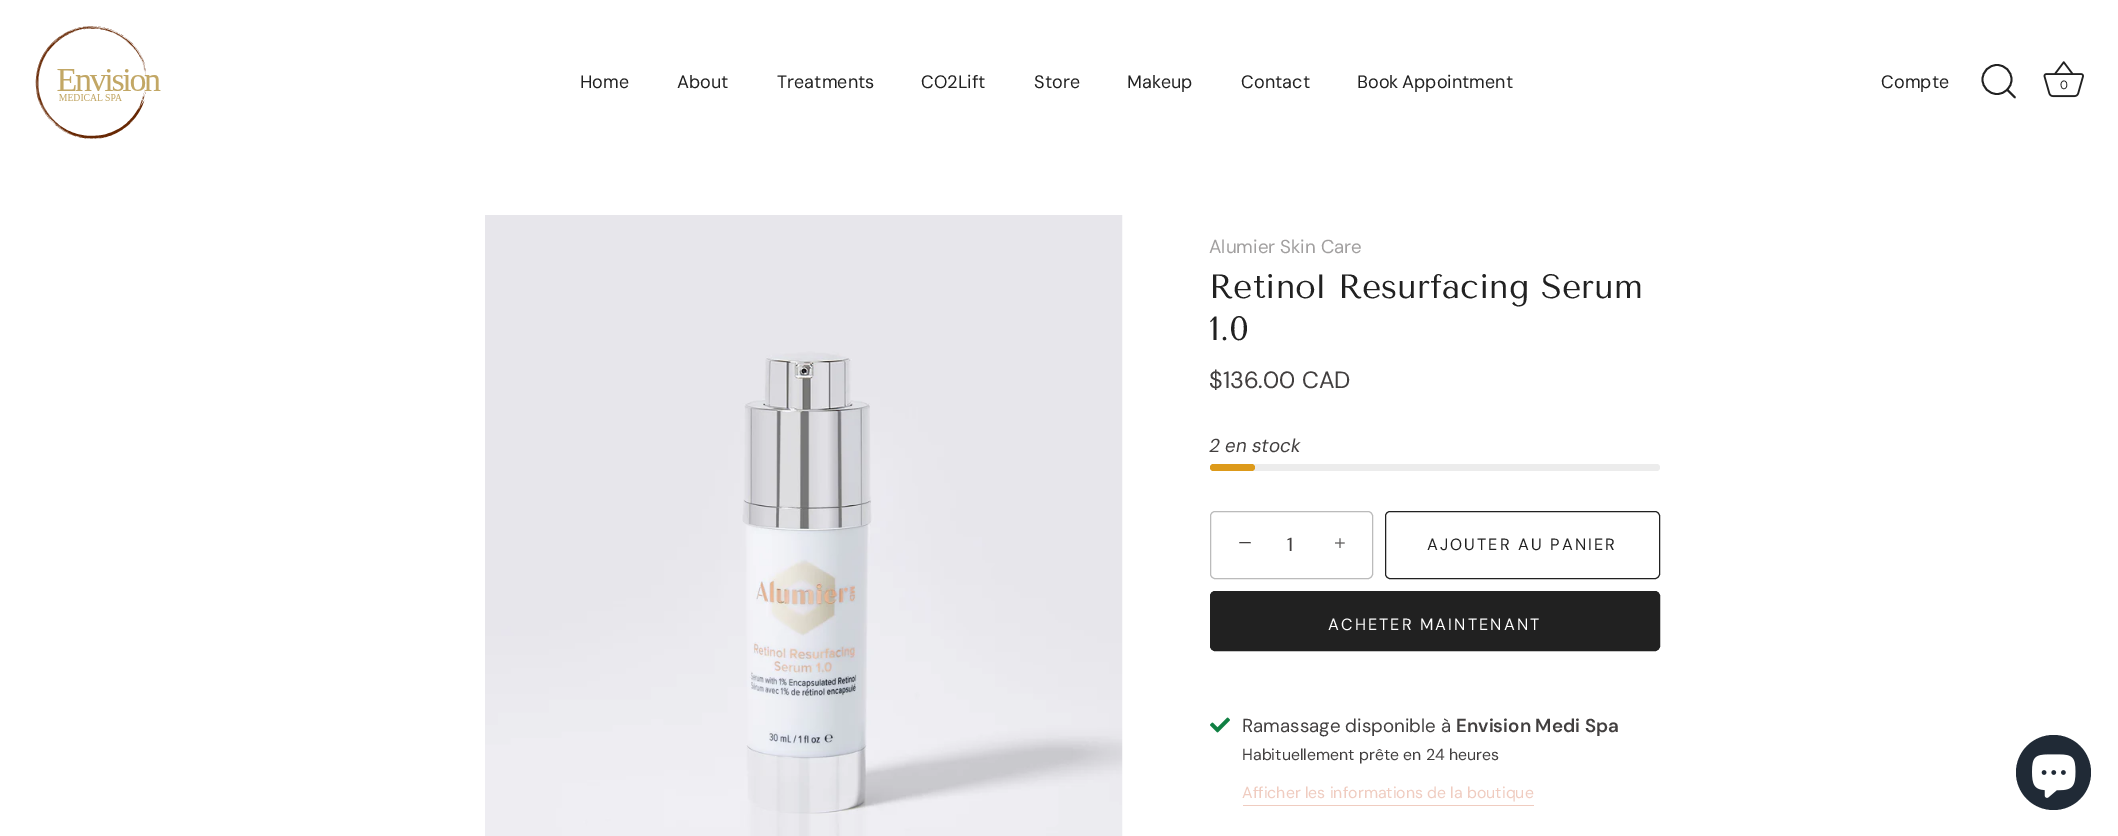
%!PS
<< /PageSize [2118 836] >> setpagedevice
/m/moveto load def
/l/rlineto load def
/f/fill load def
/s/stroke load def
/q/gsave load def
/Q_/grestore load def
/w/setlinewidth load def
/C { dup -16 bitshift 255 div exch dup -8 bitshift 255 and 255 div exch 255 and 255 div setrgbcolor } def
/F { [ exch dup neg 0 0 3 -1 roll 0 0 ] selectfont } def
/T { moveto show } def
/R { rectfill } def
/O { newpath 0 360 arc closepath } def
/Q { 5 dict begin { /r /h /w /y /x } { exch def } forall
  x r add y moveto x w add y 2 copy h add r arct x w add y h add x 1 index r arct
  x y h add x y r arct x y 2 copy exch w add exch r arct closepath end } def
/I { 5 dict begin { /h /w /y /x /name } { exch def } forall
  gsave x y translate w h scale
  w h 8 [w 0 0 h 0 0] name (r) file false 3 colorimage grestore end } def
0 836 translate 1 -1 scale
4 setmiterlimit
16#FFFFFF C
0 0 2118 836 R
(1.rgb) 35 26 126 113 I
/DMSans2-Regular 18 F
16#212121 C
(Home) 580 88 T
(About) 677 88 T
(Treatments) 777 88 T
(CO2Lift) 921 88 T
(Store) 1034 88 T
(Makeup) 1127 88 T
(Contact) 1241 88 T
1357 88 m -1 0 32 (Book Appointment) widthshow
(Compte) 1881 88 T
1.8 w
1997 79.5 14.5 O s
1 setlinecap
1 setlinejoin
2015 97.5 m -8 -8 l s
(2.rgb) 2043 61 41 37 I
/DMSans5-Regular 12 F
(0) 2060 89 T
(3.rgb) 485 215 638 621 I
/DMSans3-Regular 18.75 F
16#A19F9F C
(Alumier Skin Care) 1209 253 T
/TenorSans-Regular 33.75 F
16#212121 C
(Retinol Resurfacing Serum) 1209 298 T
(1.0) 1209 340 T
/DMSans-Regular 23.5 F
16#423F3F C
($136.00 CAD) 1209 388 T
/DMSans-Italic 18.75 F
(2 en stock) 1209 452 T
16#ECECEC C
1210 464 450 7 3.5 Q f
16#DD9A1A C
1210 464 45 7 3.5 Q f
16#BBBBBB C
1 w
0 setlinecap
0 setlinejoin
1210.5 511.5 162 67 4.5 Q s
/LiberationSerif-Regular 25 F
16#423F3F C
(−) 1238 551 T
/DMSans3-Regular 18.75 F
1287 551 m 1 0 (1) ashow
/LiberationSerif-Regular 21 F
(+) 1334 550 T
16#212121 C
1385.5 511.5 274 67 4.5 Q s
/DMSans2-Regular 16.25 F
1427 550 m 2.1 0 (AJOUTER AU PANIER) ashow
1210.5 591.5 449 59 4.5 Q q f Q_
s
16#FFFFFF C
1328 630 m 2.1 0 (ACHETER MAINTENANT) ashow
(4.rgb) 1210 717 20 16 I
/DMSans3-Regular 18.75 F
16#423F3F C
(Ramassage disponible à) 1242 732 T
/DMSans-SemiBold 18.75 F
(Envision Medi Spa) 1456 732 T
/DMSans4-Regular 15.9 F
(Habituellement prête en 24 heures) 1242 760 T
16#F0CCC0 C
(Afficher les informations de la boutique) 1242 798 T
1243 805 291 1 R
16#202A36 C
2053.5 772.5 37.5 O f
(5.rgb) 2032 754 44 44 I
showpage
